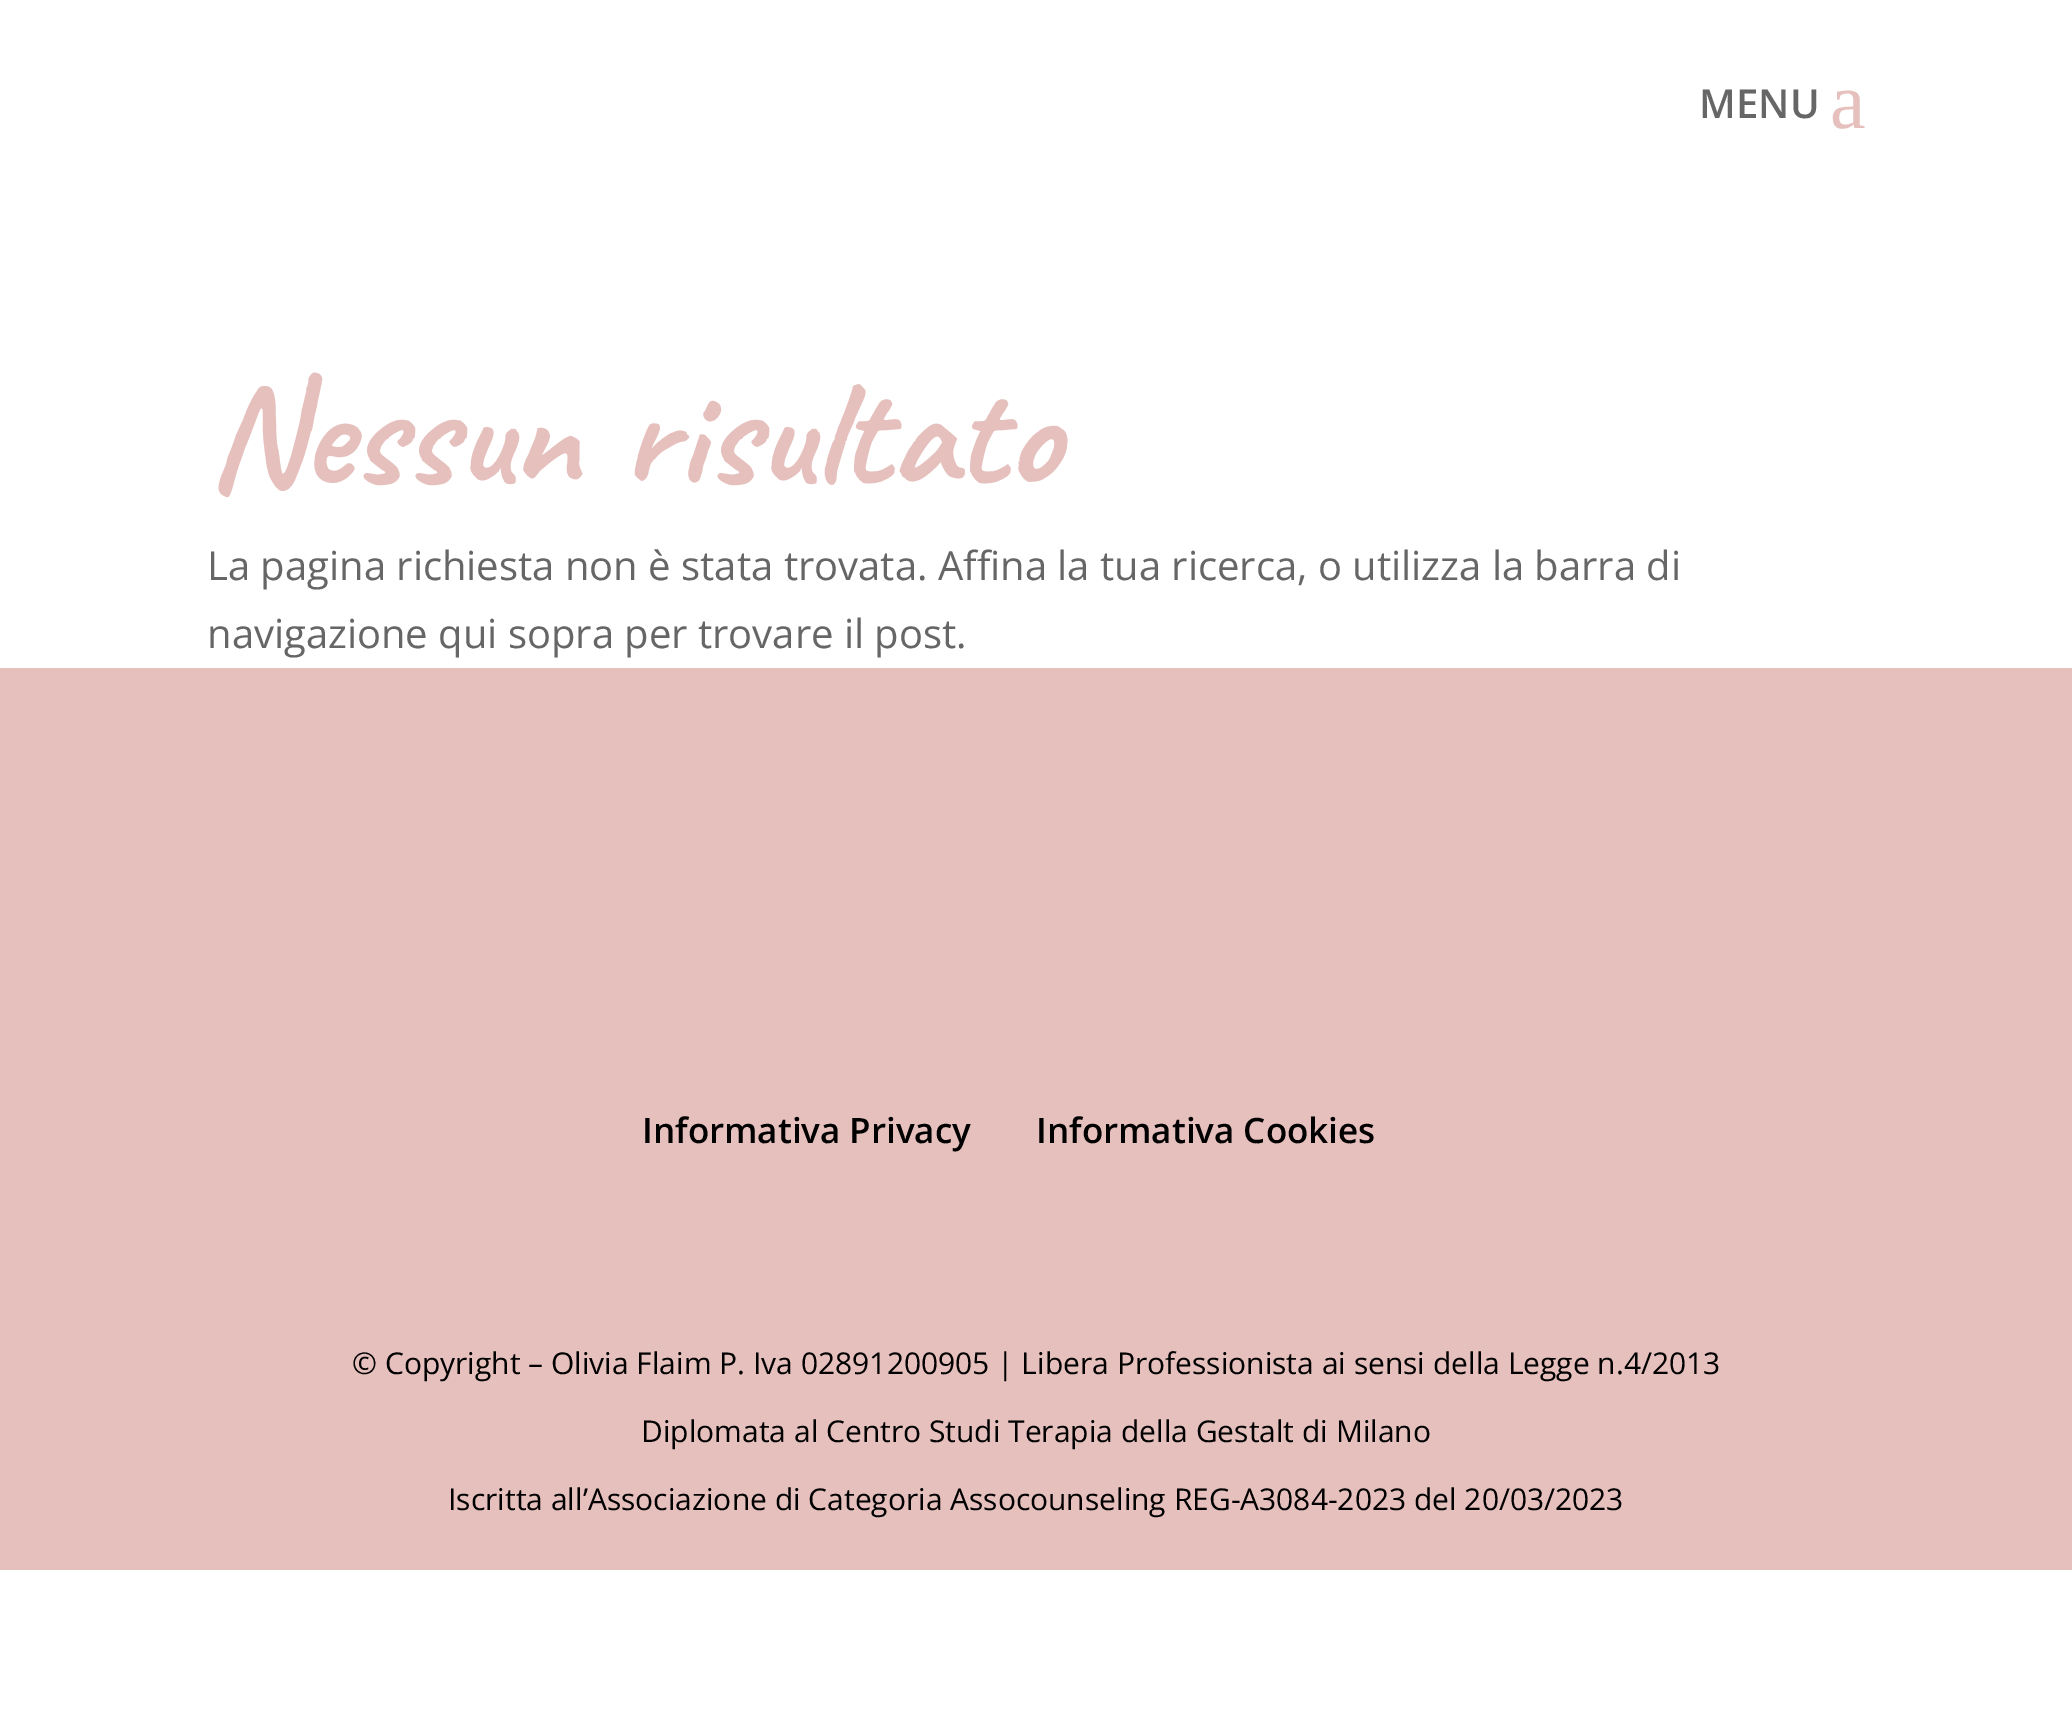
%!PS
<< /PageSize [2072 1721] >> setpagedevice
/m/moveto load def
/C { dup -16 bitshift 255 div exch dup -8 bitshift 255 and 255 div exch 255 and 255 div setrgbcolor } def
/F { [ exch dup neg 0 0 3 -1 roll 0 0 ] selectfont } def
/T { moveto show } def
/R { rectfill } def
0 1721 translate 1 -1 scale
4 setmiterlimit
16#FFFFFF C
0 0 2072 1721 R
/OpenSans-SemiBold 40 F
16#666666 C
(MENU) 1699 118 T
/LiberationSerif-Regular 80 F
16#E6C0BD C
(a) 1830 128 T
/Caveat-Bold 150 F
207 483 m 5 0 32 (Nessun risultato) widthshow
/OpenSans-Regular 40 F
16#666666 C
(La pagina richiesta non è stata trovata. Affina la tua ricerca, o utilizza la barra di) 207 580 T
(navigazione qui sopra per trovare il post.) 207 648 T
16#E6C0BD C
0 668 2072 902 R
/OpenSans-SemiBold 35 F
16#000000 C
(Informativa Privacy) 642 1143 T
(Informativa Cookies) 1036 1143 T
/OpenSans-Regular 30 F
(© Copyright – Olivia Flaim P. Iva 02891200905 | Libera Professionista ai sensi della Legge n.4/2013) 352 1374 T
(Diplomata al Centro Studi Terapia della Gestalt di Milano) 641 1442 T
(Iscritta all’Associazione di Categoria Assocounseling REG-A3084-2023 del 20/03/2023) 448 1510 T
showpage
